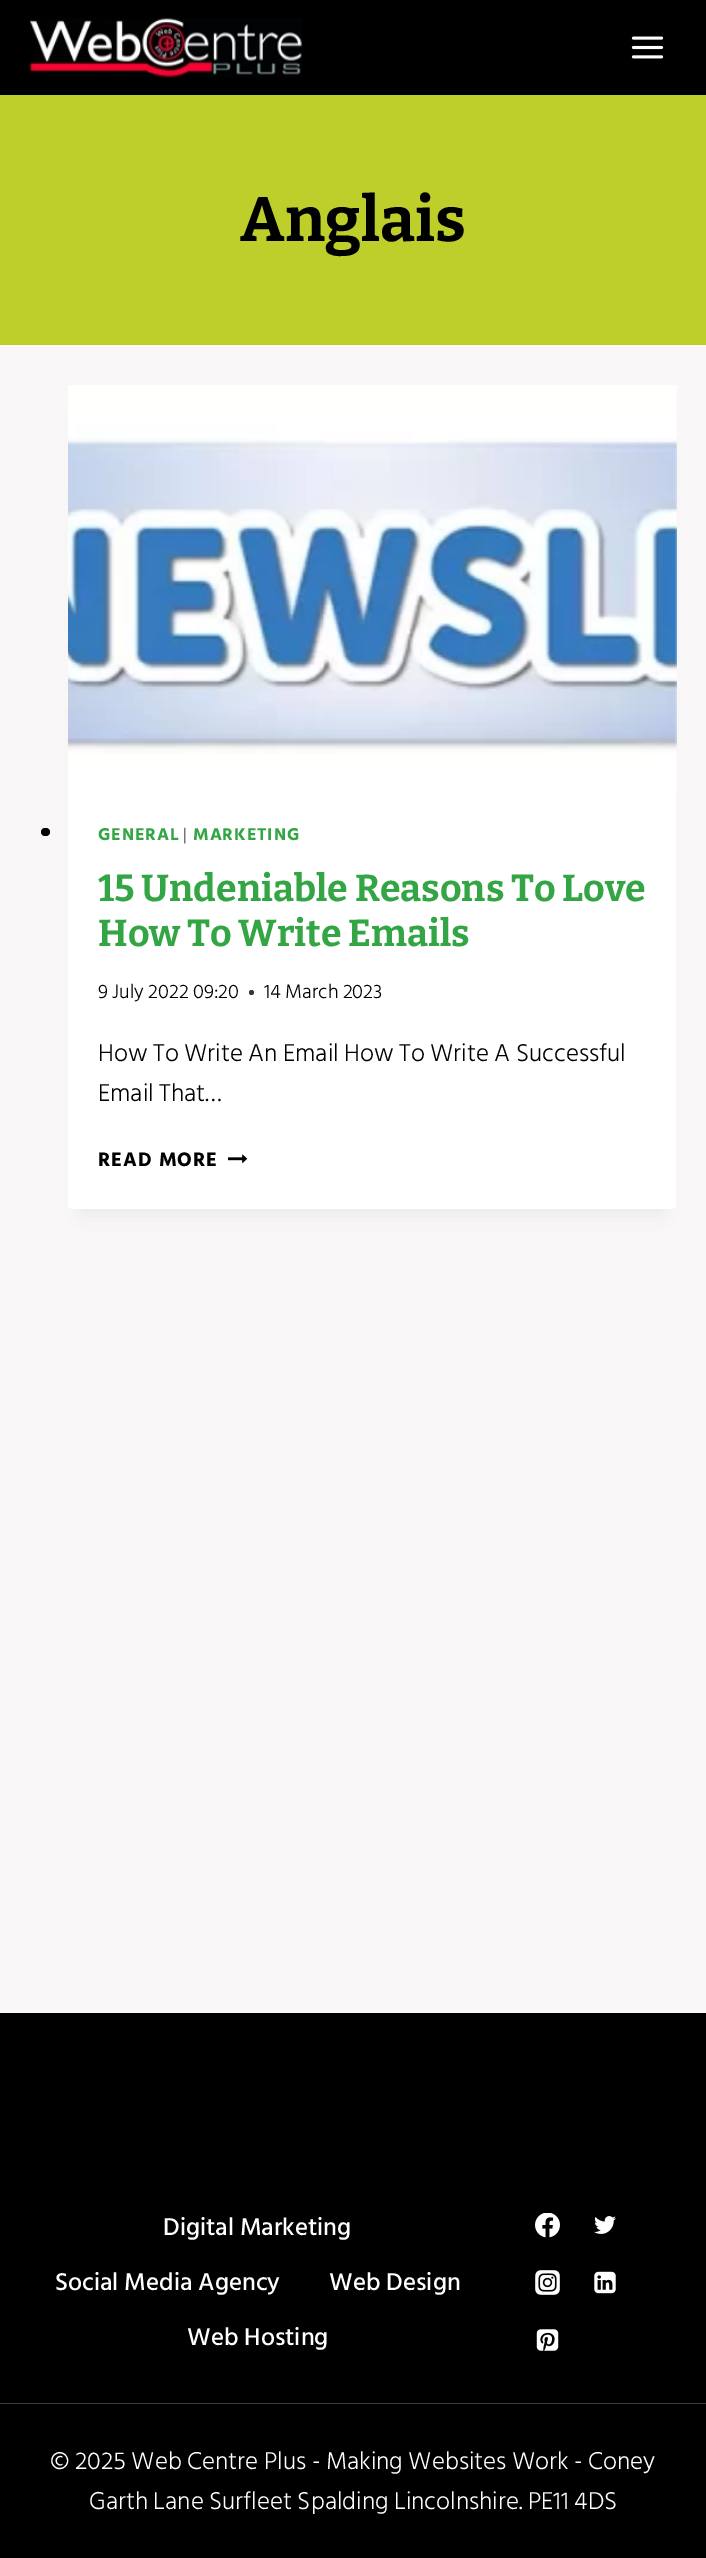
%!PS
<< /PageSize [706 2558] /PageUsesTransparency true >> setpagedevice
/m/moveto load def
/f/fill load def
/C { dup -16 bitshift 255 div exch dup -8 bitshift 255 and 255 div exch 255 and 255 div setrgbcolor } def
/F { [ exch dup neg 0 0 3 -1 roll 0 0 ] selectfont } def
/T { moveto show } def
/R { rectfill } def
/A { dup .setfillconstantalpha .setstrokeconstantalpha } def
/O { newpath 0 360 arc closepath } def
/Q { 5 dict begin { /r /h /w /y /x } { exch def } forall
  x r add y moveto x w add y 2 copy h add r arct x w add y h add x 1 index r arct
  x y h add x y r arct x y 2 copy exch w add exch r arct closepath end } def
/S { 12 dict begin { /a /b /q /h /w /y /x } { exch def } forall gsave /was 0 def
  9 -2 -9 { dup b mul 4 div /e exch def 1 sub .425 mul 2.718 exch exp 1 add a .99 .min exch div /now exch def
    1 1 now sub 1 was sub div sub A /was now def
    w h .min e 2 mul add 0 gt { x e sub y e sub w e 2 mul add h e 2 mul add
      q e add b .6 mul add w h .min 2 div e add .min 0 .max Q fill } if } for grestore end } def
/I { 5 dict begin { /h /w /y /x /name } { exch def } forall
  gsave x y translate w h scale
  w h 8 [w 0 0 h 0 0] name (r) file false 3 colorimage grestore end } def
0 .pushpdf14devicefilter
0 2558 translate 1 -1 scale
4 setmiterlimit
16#F9F7F7 C
0 0 706 2558 R
16#000000 C
0 0 706 95 R
(1.rgb) 30 17 273 61 I
(2.rgb) 631 36 33 23 I
16#BECF2B C
0 95 706 250 R
/Bitter-Bold 62.5 F
16#000000 C
(Anglais) 240 241 T
16#010101 C
41 828 9 8 4 Q f
16#000000 C
80 416 584 799 0 9.5 .05 S
16#FFFFFF C
68 385 608 824 5 Q f
(3.rgb) 68 385 609 406 I
/HindSiliguri-Bold 17.5 F
16#34A544 C
98 840 m .9 0 (GENERAL) ashow
/HindSiliguri-Light 17.5 F
16#000000 C
183 840 m .9 0 (|) ashow
/HindSiliguri-Bold 17.5 F
16#34A544 C
193 840 m .9 0 (MARKETING) ashow
/Bitter-Bold 37.5 F
(15 Undeniable Reasons To Love) 98 901 T
(How To Write Emails) 98 946 T
/HindSiliguri-Light 20 F
16#000000 C
(9 July 2022 09:20) 98 998 T
16#343434 C
251.5 992.5 2.5 O f
16#000000 C
(14 March 2023) 264 998 T
/HindSiliguri-Light 25 F
(How To Write An Email How To Write A Successful) 98 1061 T
(Email That…) 98 1101 T
/HindSiliguri-Bold 20 F
98 1166 m 1 0 (READ MORE) ashow
(4.rgb) 228 1154 20 9 I
0 2013 706 545 R
16#3A4332 C
0 2403 706 1 R
/HindSiliguri-Medium 25 F
16#FFFFFF C
(Digital Marketing) 163 2235 T
(Social Media Agency) 55 2290 T
(Web Design) 329 2290 T
(Web Hosting) 187 2345 T
(5.rgb) 535 2213 25 25 I
(6.rgb) 594 2216 22 18 I
(7.rgb) 535 2270 25 25 I
(8.rgb) 594 2271 22 23 I
(9.rgb) 536 2329 23 22 I
/HindSiliguri-Light 25 F
(© 2025 Web Centre Plus - Making Websites Work - Coney) 50 2469 T
(Garth Lane Surfleet Spalding Lincolnshire. PE11 4DS) 89 2509 T
.poppdf14devicefilter showpage
